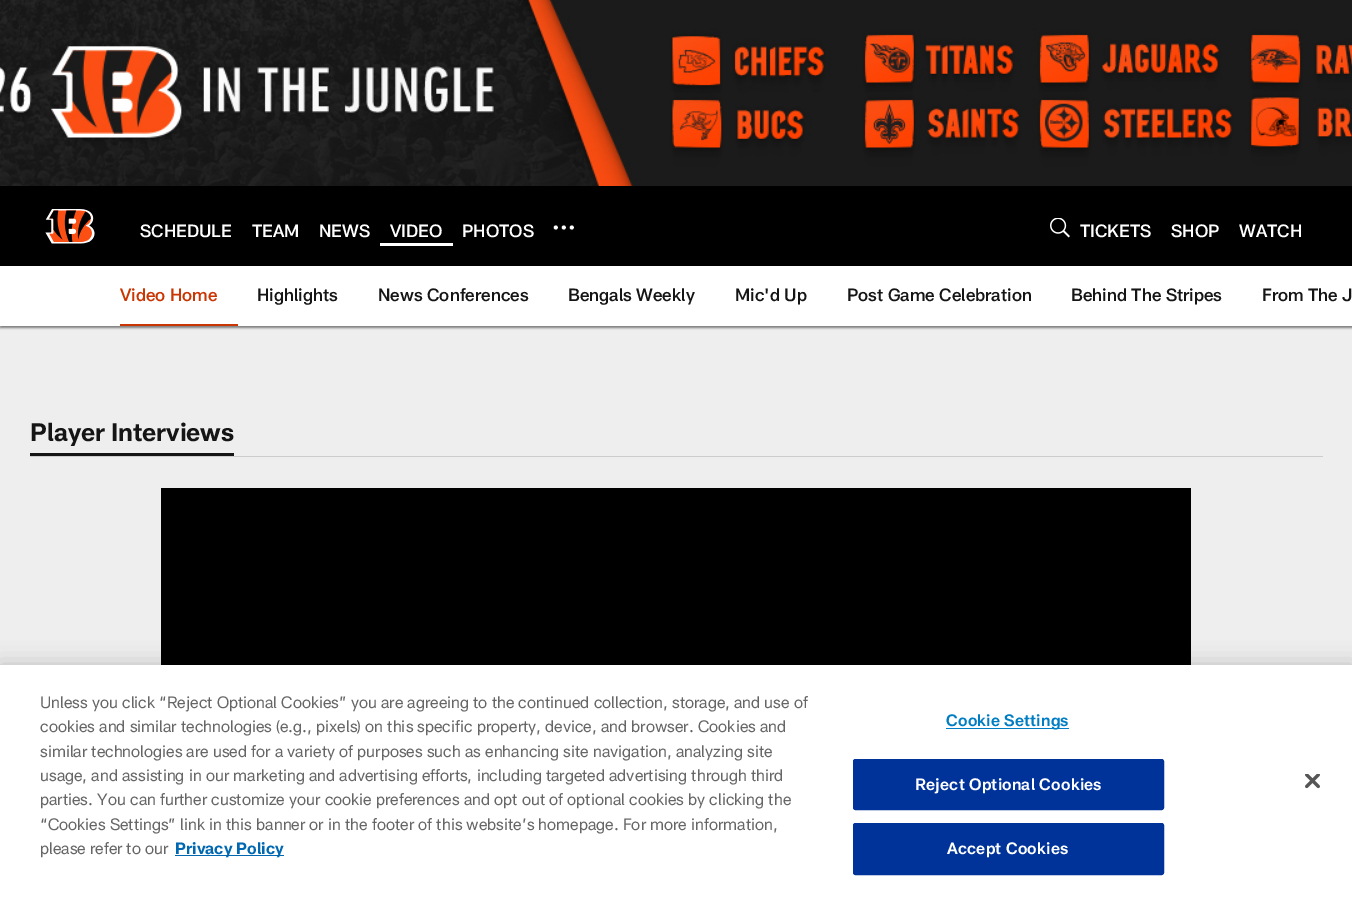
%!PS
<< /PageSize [1352 899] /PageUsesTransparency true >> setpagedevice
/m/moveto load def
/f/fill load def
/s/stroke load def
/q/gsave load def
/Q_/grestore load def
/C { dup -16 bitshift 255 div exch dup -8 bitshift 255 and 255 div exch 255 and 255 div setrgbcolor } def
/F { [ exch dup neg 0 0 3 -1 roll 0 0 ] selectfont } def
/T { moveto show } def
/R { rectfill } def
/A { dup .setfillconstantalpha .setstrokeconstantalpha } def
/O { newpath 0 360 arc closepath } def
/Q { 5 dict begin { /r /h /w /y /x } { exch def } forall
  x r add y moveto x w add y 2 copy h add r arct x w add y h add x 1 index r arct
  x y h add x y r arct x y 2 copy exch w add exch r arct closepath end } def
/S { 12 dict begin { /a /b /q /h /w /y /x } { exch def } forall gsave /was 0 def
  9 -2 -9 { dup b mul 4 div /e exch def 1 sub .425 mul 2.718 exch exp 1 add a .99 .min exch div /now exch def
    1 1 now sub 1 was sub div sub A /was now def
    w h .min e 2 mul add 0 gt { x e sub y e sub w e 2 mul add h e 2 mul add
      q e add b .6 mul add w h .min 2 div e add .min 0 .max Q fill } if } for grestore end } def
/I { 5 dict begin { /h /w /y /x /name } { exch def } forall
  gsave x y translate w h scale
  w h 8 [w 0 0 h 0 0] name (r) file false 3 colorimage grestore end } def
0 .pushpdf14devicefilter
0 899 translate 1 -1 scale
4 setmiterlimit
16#EEEEEE C
0 0 1352 899 R
(1.rgb) 0 0 1352 186 I
16#000000 C
0 186 1352 80 R
(2.rgb) 45 209 50 35 I
/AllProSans-Medium 17.5 F
16#FFFFFF C
(SCHEDULE) 140 237 T
(TEAM) 252 237 T
(NEWS) 319 237 T
380 243 73 3 R
(VIDEO) 390 237 T
(PHOTOS) 462 237 T
571.8 227.5 2 O f
563.8 227.5 2 O f
555.8 227.5 2 O f
(3.rgb) 1050 218 20 20 I
(TICKETS) 1080 237 T
(SHOP) 1171 237 T
(WATCH) 1239 237 T
16#000000 C
0 268 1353 60 0 1 .47 S
16#FFFFFF C
0 266 1352 60 R
16#C93603 C
120 324 118 2 R
(Video Home) 120 301 T
16#151515 C
(Highlights) 257 301 T
(News Conferences) 378 301 T
(Bengals Weekly) 568 301 T
(Mic'd Up) 735 301 T
(Post Game Celebration) 847 301 T
(Behind The Stripes) 1071 301 T
(From The J) 1262 301 T
16#CCCCCC C
30 456 1293 1 R
16#151515 C
30 453 204 3 R
/AllProSans-Bold 25 F
(Player Interviews) 30 441 T
16#000000 C
161 488 1030 177 R
0 665 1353 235 0 11 .2 S
16#FFFFFF C
0 665 1352 234 R
/AllProSans-Regular 16.25 F
16#666666 C
(Unless you click “Reject Optional Cookies” you are agreeing to the continued collection, storage, and use of) 40 708 T
(cookies and similar technologies \(e.g., pixels\) on this specific property, device, and browser. Cookies and) 40 732 T
(similar technologies are used for a variety of purposes such as enhancing site navigation, analyzing site) 40 757 T
(usage, and assisting in our marketing and advertising efforts, including targeted advertising through third) 40 781 T
(parties. You can further customize your cookie preferences and opt out of optional cookies by clicking the) 40 805 T
(“Cookies Settings” link in this banner or in the footer of this website’s homepage. For more information,) 40 830 T
(please refer to our) 40 854 T
16#0067B1 C
175 855 109 1 R
/AllProSans-Bold 16.25 F
(Privacy Policy) 175 854 T
16#007DC3 C
946 728 123 1 R
/AllProSans-SemiBold 16.25 F
946 726 m .2 0 (Cookie Settings) ashow
16#003399 C
853.5 759.5 310 50 2 Q q f Q_
s
16#FFFFFF C
915 790 m .2 0 (Reject Optional Cookies) ashow
16#003399 C
853.5 823.5 310 51 2 Q q f Q_
s
16#FFFFFF C
947 854 m .2 0 (Accept Cookies) ashow
(4.rgb) 1305 774 15 15 I
.poppdf14devicefilter showpage
